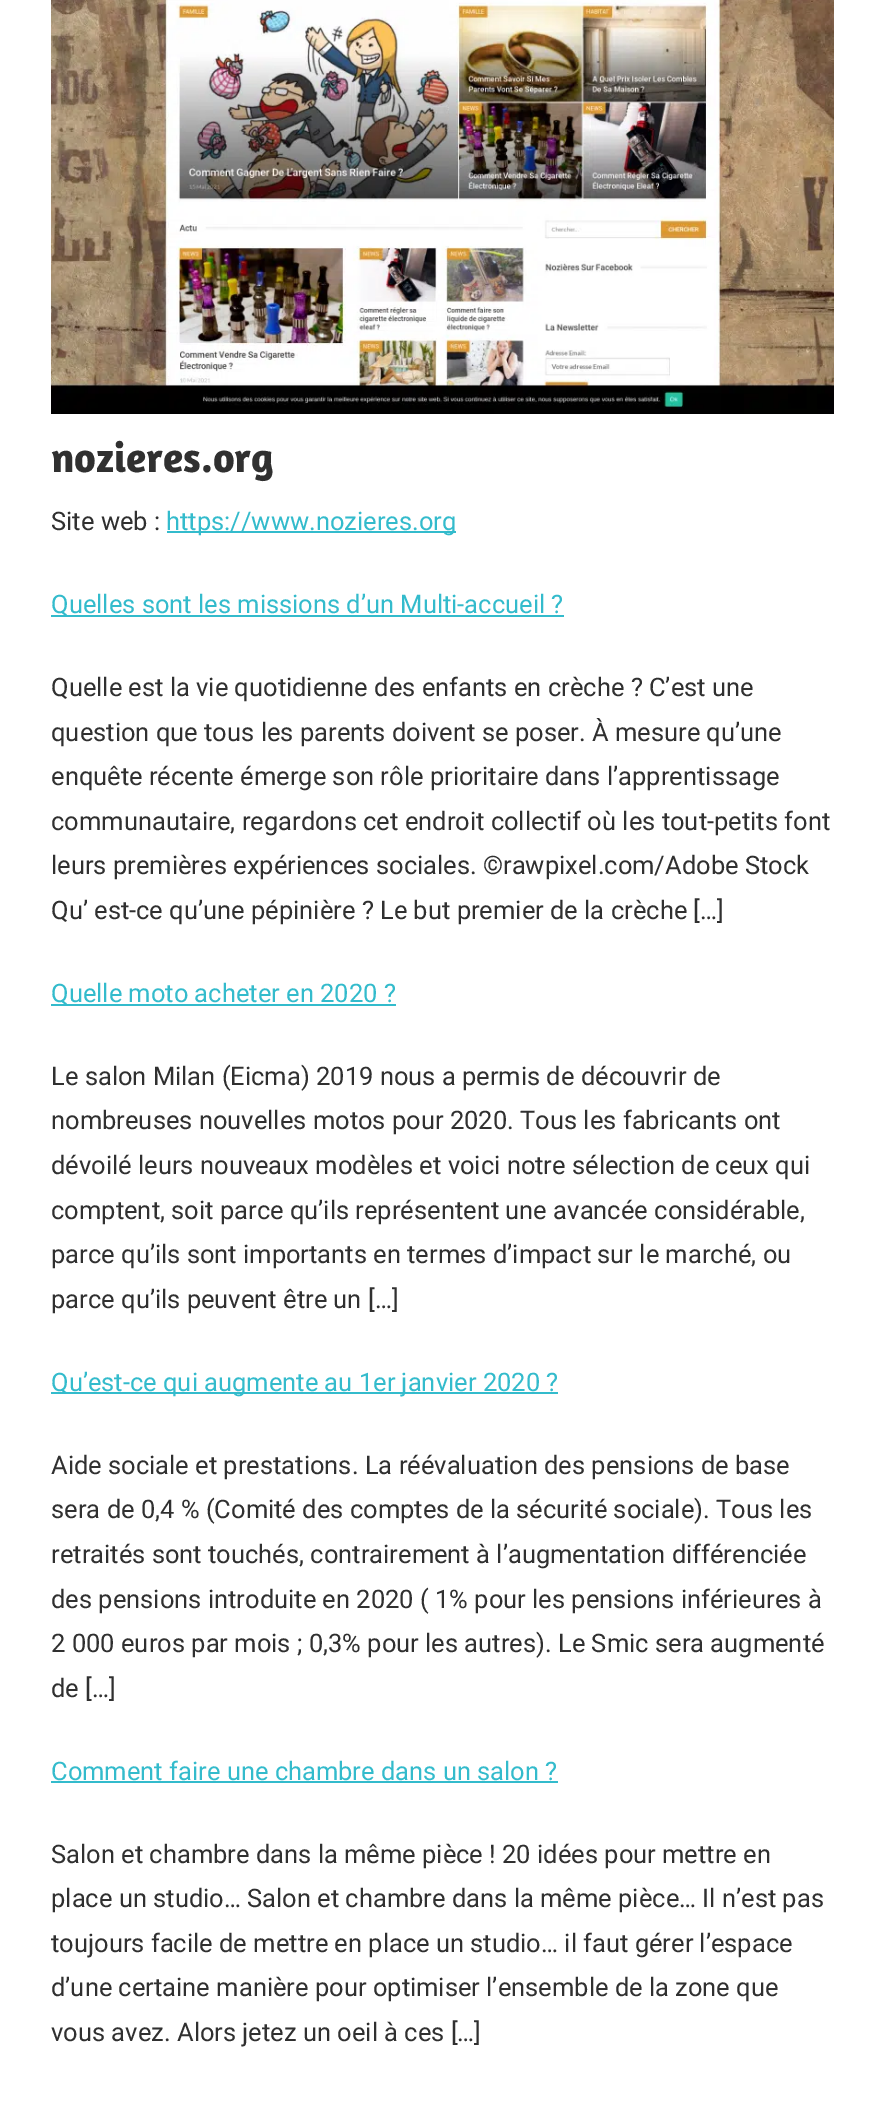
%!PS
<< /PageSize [884 2101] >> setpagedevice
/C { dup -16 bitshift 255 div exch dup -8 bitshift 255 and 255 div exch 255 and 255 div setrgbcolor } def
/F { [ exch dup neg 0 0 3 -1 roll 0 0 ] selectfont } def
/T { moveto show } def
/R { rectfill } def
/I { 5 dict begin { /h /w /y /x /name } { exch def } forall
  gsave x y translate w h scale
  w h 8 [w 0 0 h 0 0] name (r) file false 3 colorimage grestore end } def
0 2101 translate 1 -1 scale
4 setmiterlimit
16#FFFFFF C
0 0 884 2101 R
(1.rgb) 51 0 783 414 I
/Amaranth-Bold 42 F
16#303030 C
(nozieres.org) 51 472 T
/Roboto-Regular 25.5 F
(Site web :) 51 530 T
16#33BBCC C
167 531 289 2 R
(https://www.nozieres.org) 166 530 T
51 615 513 2 R
(Quelles sont les missions d’un Multi-accueil ?) 51 613 T
16#303030 C
(Quelle est la vie quotidienne des enfants en crèche ? C’est une) 51 696 T
(question que tous les parents doivent se poser. À mesure qu’une) 51 741 T
(enquête récente émerge son rôle prioritaire dans l’apprentissage) 51 785 T
(communautaire, regardons cet endroit collectif où les tout-petits font) 51 830 T
(leurs premières expériences sociales. ©rawpixel.com/Adobe Stock) 51 874 T
(Qu’ est-ce qu’une pépinière ? Le but premier de la crèche […]) 51 919 T
16#33BBCC C
51 1004 345 2 R
(Quelle moto acheter en 2020 ?) 51 1002 T
16#303030 C
(Le salon Milan \(Eicma\) 2019 nous a permis de découvrir de) 51 1085 T
(nombreuses nouvelles motos pour 2020. Tous les fabricants ont) 51 1129 T
(dévoilé leurs nouveaux modèles et voici notre sélection de ceux qui) 51 1174 T
(comptent, soit parce qu’ils représentent une avancée considérable,) 51 1219 T
(parce qu’ils sont importants en termes d’impact sur le marché, ou) 51 1263 T
(parce qu’ils peuvent être un […]) 51 1308 T
16#33BBCC C
51 1392 507 2 R
(Qu’est-ce qui augmente au 1er janvier 2020 ?) 51 1391 T
16#303030 C
(Aide sociale et prestations. La réévaluation des pensions de base) 51 1474 T
(sera de 0,4 % \(Comité des comptes de la sécurité sociale\). Tous les) 51 1518 T
(retraités sont touchés, contrairement à l’augmentation différenciée) 51 1563 T
(des pensions introduite en 2020 \( 1% pour les pensions inférieures à) 51 1608 T
(2 000 euros par mois ; 0,3% pour les autres\). Le Smic sera augmenté) 51 1652 T
(de […]) 51 1697 T
16#33BBCC C
(Comment faire une chambre dans un salon ?) 51 1780 T
51 1781 507 2 R
16#303030 C
(Salon et chambre dans la même pièce ! 20 idées pour mettre en) 51 1863 T
(place un studio… Salon et chambre dans la même pièce… Il n’est pas) 51 1907 T
(toujours facile de mettre en place un studio… il faut gérer l’espace) 51 1952 T
(d’une certaine manière pour optimiser l’ensemble de la zone que) 51 1996 T
(vous avez. Alors jetez un oeil à ces […]) 51 2041 T
showpage
